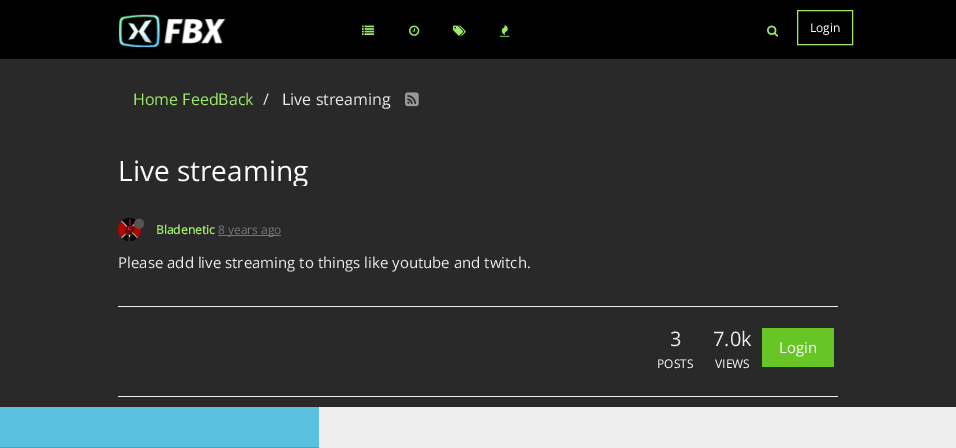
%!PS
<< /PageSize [956 448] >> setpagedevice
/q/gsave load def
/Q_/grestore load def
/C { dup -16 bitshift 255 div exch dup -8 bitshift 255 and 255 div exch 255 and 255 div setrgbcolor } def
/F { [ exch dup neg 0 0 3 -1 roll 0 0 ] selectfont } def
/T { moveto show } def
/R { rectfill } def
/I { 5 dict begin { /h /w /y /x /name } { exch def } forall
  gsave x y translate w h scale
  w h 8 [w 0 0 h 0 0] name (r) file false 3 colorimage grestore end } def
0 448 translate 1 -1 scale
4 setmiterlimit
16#292929 C
0 0 956 448 R
16#000000 C
0 0 956 59 R
(1.rgb) 118 14 108 34 I
(2.rgb) 362 25 12 10 I
(3.rgb) 409 25 11 11 I
(4.rgb) 453 25 13 11 I
(5.rgb) 500 24 10 13 I
(6.rgb) 767 25 12 12 I
16#9FE96A C
797.5 10.5 55 34 rectstroke
/OpenSans-Regular 12 F
16#FFFFFF C
(Login) 810 32 T
/OpenSans-Regular 16 F
16#9FE96A C
(Home FeedBack) 133 105 T
16#EBEBEB C
(/) 263 105 T
(Live streaming) 282 105 T
(7.rgb) 405 92 14 15 I
q
118 154 190 32 rectclip
/OpenSans-Regular 28 F
16#FFFFFF C
(Live streaming) 118 181 T
Q_
(8.rgb) 118 218 23 23 I
(9.rgb) 134 218 11 11 I
/OpenSans-Bold 12 F
16#9FE96A C
(Bladenetic) 156 234 T
16#777777 C
218 235 63 1 R
/OpenSans-Regular 12 F
(8 years ago) 218 234 T
/OpenSans-Regular 15 F
16#EBEBEB C
(Please add live streaming to things like youtube and twitch.) 118 268 T
16#EEEEEE C
118 306 720 1 R
/OpenSans-Regular 20 F
16#EBEBEB C
(3) 670 346 T
/OpenSans-Regular 12 F
16#FFFFFF C
(POSTS) 657 368 T
/OpenSans-Regular 20 F
16#EBEBEB C
(7.0k) 713 346 T
/OpenSans-Regular 12 F
16#FFFFFF C
(VIEWS) 715 368 T
16#67C525 C
762 328 72 39 R
/OpenSans-Regular 15 F
16#FFFFFF C
(Login) 779 353 T
16#EEEEEE C
118 396 720 1 R
319 407 637 41 R
16#5BC0DE C
0 407 319 40 R
16#4DA3BD C
0 447 319 1 R
showpage
